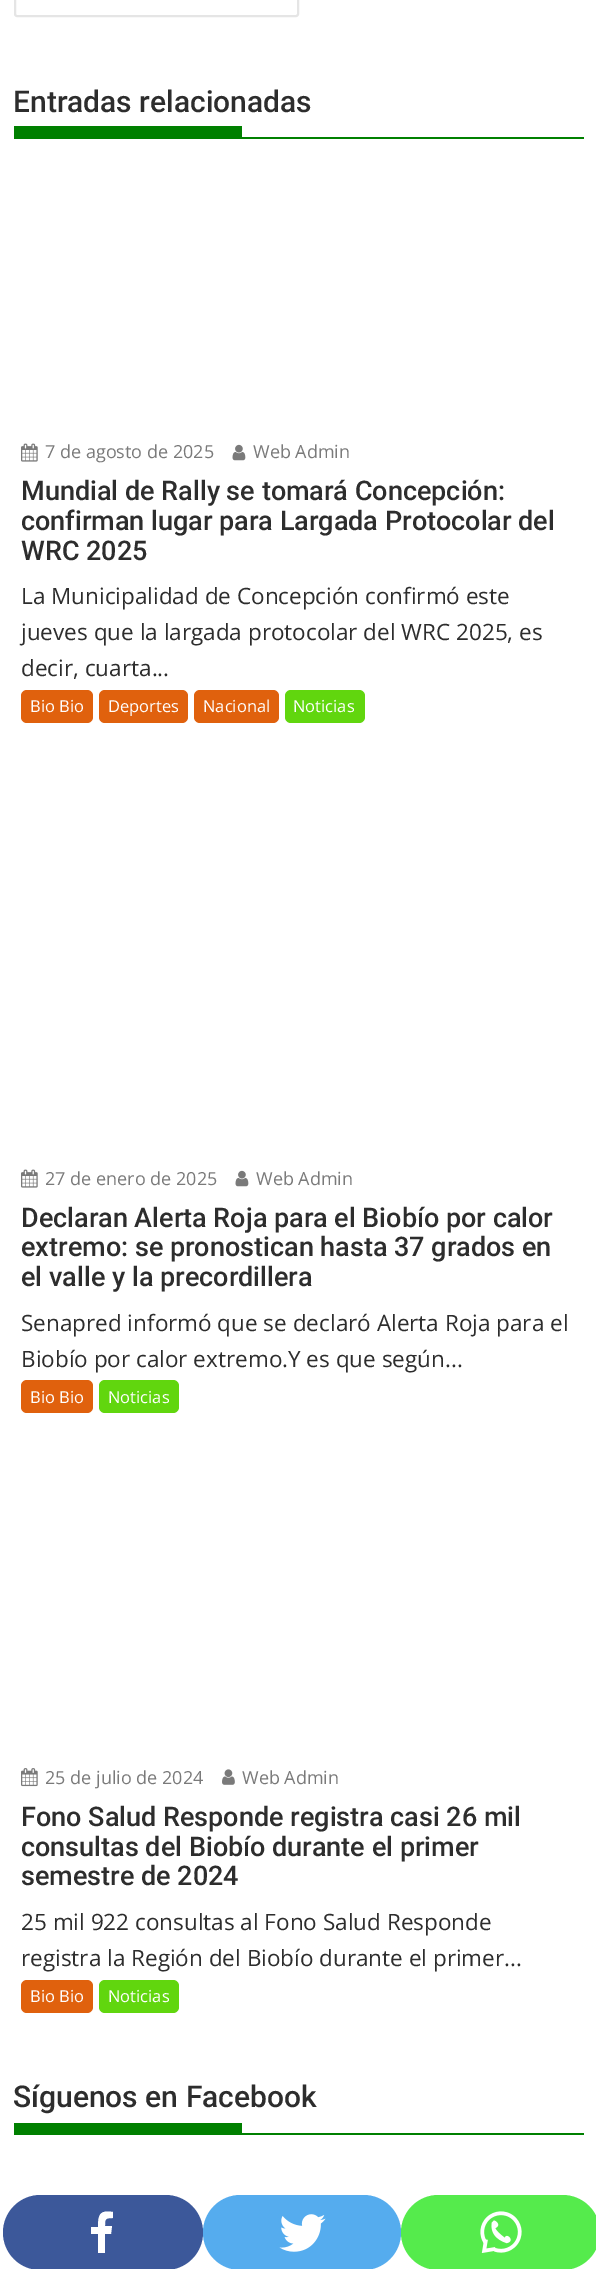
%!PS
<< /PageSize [596 2269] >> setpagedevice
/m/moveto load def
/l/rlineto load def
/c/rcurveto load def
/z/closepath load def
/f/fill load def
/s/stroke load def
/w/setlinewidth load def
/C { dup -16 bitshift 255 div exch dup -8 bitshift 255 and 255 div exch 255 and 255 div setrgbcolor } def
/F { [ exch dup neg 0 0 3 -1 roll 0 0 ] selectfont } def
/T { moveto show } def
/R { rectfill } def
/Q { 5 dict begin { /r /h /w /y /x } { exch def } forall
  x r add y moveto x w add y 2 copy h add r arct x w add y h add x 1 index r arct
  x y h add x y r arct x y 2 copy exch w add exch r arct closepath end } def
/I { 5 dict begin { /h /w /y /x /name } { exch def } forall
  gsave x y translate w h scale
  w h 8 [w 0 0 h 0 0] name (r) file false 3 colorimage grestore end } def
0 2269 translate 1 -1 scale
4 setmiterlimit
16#FFFFFF C
0 0 596 2269 R
16#E5E5E5 C
2 w
15 -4 283 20 2 Q s
16#008000 C
14 137 570 2 R
/Roboto-Medium 30 F
16#2D2D2D C
(Entradas relacionadas) 13 112 T
16#008000 C
14 126 228 11 R
(1.rgb) 21 443 17 19 I
/OpenSans-Regular 18 F
16#7A7A7A C
(7 de agosto de 2025) 45 458 T
(2.rgb) 232 444 14 17 I
(Web Admin) 253 458 T
/Roboto-Medium 27 F
16#2D2D2D C
(Mundial de Rally se tomará Concepción:) 21 500 T
(confirman lugar para Largada Protocolar del) 21 530 T
(WRC 2025) 21 560 T
/OpenSans-Regular 22.5 F
(La Municipalidad de Concepción confirmó este) 21 604 T
(jueves que la largada protocolar del WRC 2025, es) 21 640 T
(decir, cuarta...) 21 676 T
16#E0610D C
21 690 72 33 6 Q f
/OpenSans-Regular 16.5 F
16#FFFFFF C
(Bio Bio) 30 712 T
16#E0610D C
99 690 89 33 6 Q f
16#FFFFFF C
(Deportes) 108 712 T
16#E0610D C
194 690 85 33 6 Q f
16#FFFFFF C
(Nacional) 203 712 T
16#61D60E C
285 690 80 33 6 Q f
16#FFFFFF C
(Noticias) 293 712 T
(1.rgb) 21 1169 17 19 I
/OpenSans-Regular 18 F
16#7A7A7A C
(27 de enero de 2025) 45 1185 T
(2.rgb) 235 1170 14 17 I
(Web Admin) 256 1185 T
/Roboto-Medium 27 F
16#2D2D2D C
(Declaran Alerta Roja para el Biobío por calor) 21 1227 T
(extremo: se pronostican hasta 37 grados en) 21 1256 T
(el valle y la precordillera) 21 1286 T
/OpenSans-Regular 22.5 F
(Senapred informó que se declaró Alerta Roja para el) 21 1331 T
(Biobío por calor extremo.Y es que según...) 21 1367 T
16#E0610D C
21 1380 72 33 6 Q f
/OpenSans-Regular 16.5 F
16#FFFFFF C
(Bio Bio) 30 1403 T
16#61D60E C
99 1380 80 33 6 Q f
16#FFFFFF C
(Noticias) 108 1403 T
(3.rgb) 21 1768 17 19 I
/OpenSans-Regular 18 F
16#7A7A7A C
(25 de julio de 2024) 45 1784 T
(4.rgb) 222 1769 13 16 I
(Web Admin) 242 1784 T
/Roboto-Medium 27 F
16#2D2D2D C
(Fono Salud Responde registra casi 26 mil) 21 1826 T
(consultas del Biobío durante el primer) 21 1856 T
(semestre de 2024) 21 1885 T
/OpenSans-Regular 22.5 F
(25 mil 922 consultas al Fono Salud Responde) 21 1930 T
(registra la Región del Biobío durante el primer...) 21 1966 T
16#E0610D C
21 1980 72 33 6 Q f
/OpenSans-Regular 16.5 F
16#FFFFFF C
(Bio Bio) 30 2002 T
16#61D60E C
99 1980 80 33 6 Q f
16#FFFFFF C
(Noticias) 108 2002 T
16#3C589A C
3 2195 200 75 37.5 Q f
16#FFFFFF C
105 2253 m 0 -19 l 6 0 l 1 -8 l -7 0 l 0 -7 0 -8 8 -8 c 0 -6 l -13 -2 -15 2 -15 15 c -7 0 l 0 7 l 7 0 l 0 19 l z f
16#55ACEE C
203 2195 198 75 37.5 Q f
(5.rgb) 279 2214 47 38 I
16#55EB4C C
401 2195 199 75 37.5 Q f
(6.rgb) 480 2211 42 42 I
16#008000 C
14 2133 570 2 R
/Roboto-Medium 30 F
16#2D2D2D C
(Síguenos en Facebook) 13 2107 T
16#008000 C
14 2123 228 10 R
showpage
